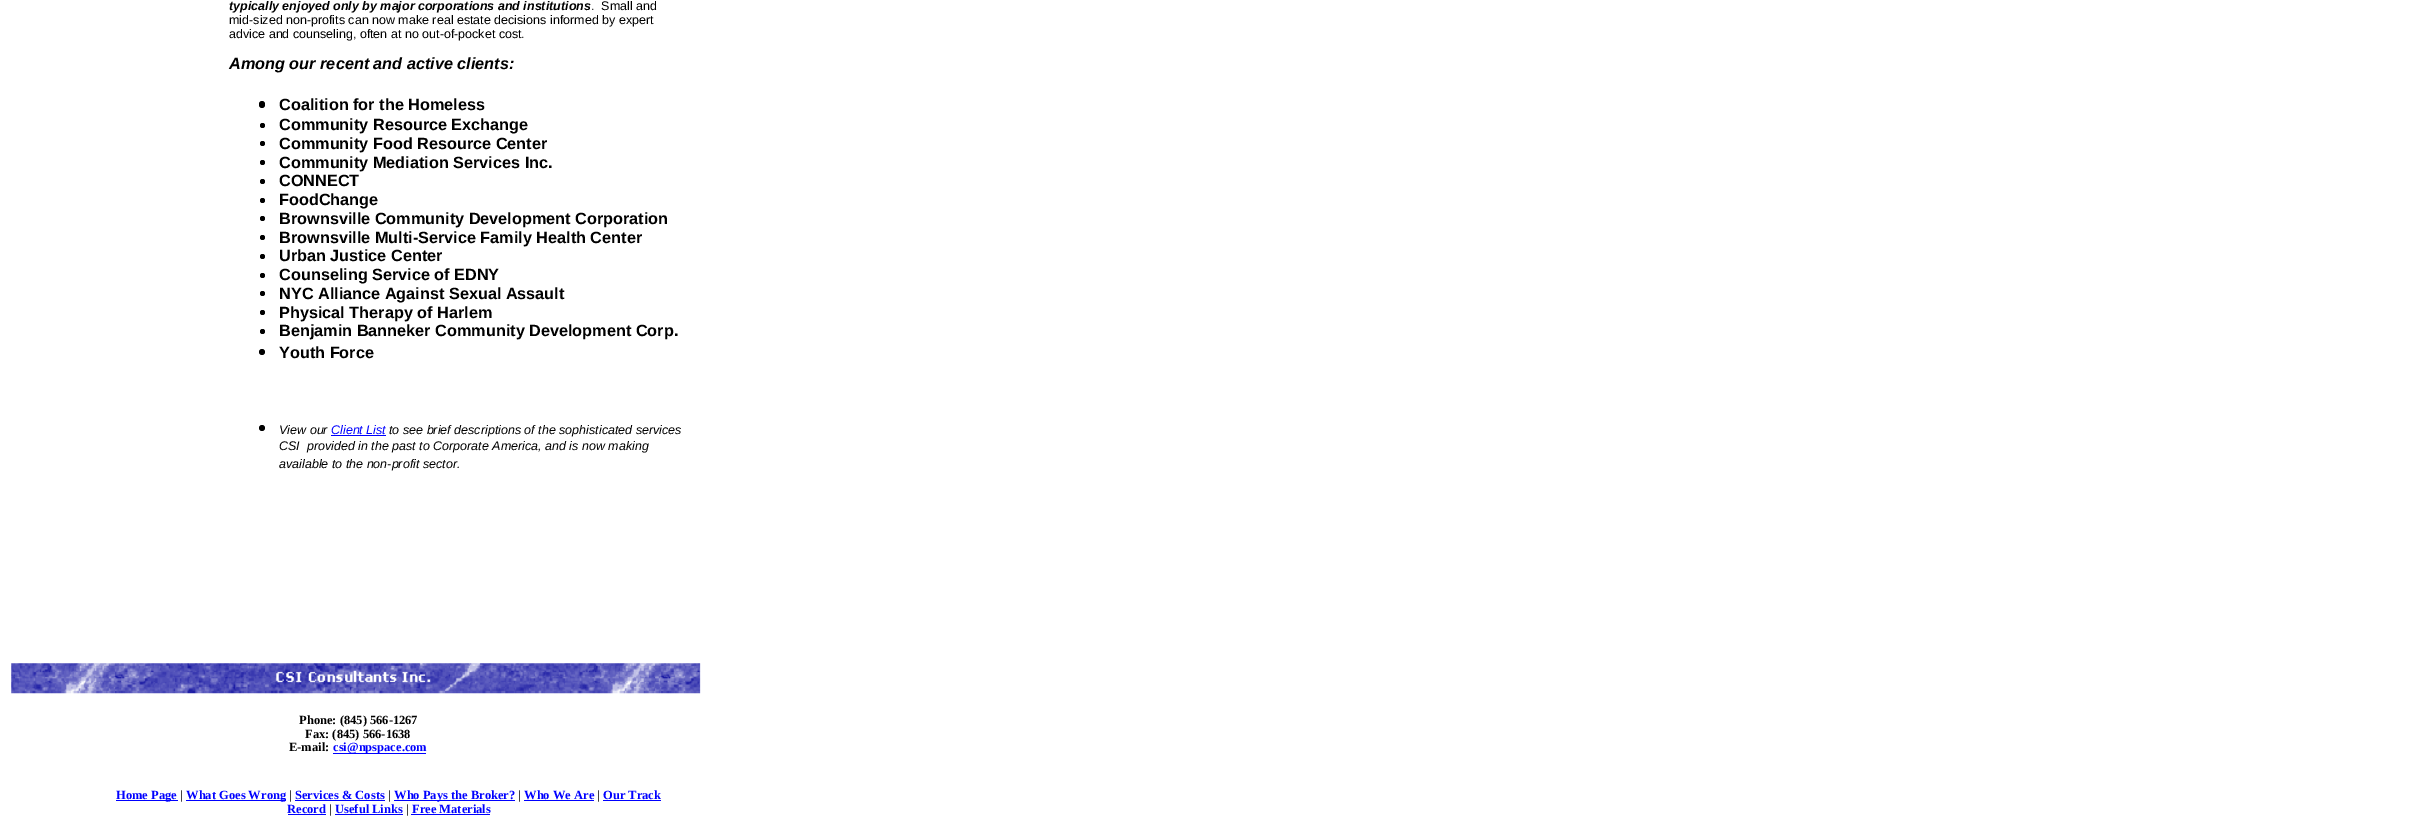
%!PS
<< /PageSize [2410 824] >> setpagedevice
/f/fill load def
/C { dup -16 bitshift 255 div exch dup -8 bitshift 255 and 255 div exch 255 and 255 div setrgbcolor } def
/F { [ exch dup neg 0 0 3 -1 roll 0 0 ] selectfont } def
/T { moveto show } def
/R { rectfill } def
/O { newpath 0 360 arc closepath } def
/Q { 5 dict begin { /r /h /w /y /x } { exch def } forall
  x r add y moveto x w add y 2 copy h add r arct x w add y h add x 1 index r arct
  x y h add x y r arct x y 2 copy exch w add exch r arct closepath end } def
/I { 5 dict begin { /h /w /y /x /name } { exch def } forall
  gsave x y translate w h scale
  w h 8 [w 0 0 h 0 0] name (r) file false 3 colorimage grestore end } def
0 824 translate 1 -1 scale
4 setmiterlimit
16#FFFFFF C
0 0 2410 824 R
/LiberationSans-BoldItalic 12.5 F
16#000000 C
(typically enjoyed only by major corporations and institutions) 229 10 T
/LiberationSans-Regular 12.5 F
(.  Small and) 591 10 T
(mid-sized non-profits can now make real estate decisions informed by expert) 229 24 T
(advice and counseling, often at no out-of-pocket cost.) 229 38 T
/LiberationSans-BoldItalic 16.25 F
(Among our recent and active clients:) 229 69 T
259 101 6 7 3 Q f
/LiberationSans-Bold 16.25 F
(Coalition for the Homeless) 279 110 T
262.5 125.5 2.5 O f
(Community Resource Exchange) 279 130 T
262.5 143.5 2.5 O f
(Community Food Resource Center) 279 149 T
262.5 162.5 2.5 O f
(Community Mediation Services Inc.) 279 168 T
262.5 181.5 2.5 O f
(CONNECT) 279 186 T
262.5 200.5 2.5 O f
(FoodChange) 279 205 T
262.5 218.5 2.5 O f
(Brownsville Community Development Corporation) 279 224 T
262.5 237.5 2.5 O f
(Brownsville Multi-Service Family Health Center) 279 243 T
262.5 256.5 2.5 O f
(Urban Justice Center) 279 261 T
262.5 275.5 2.5 O f
(Counseling Service of EDNY) 279 280 T
262.5 293.5 2.5 O f
(NYC Alliance Against Sexual Assault) 279 299 T
262.5 312.5 2.5 O f
(Physical Therapy of Harlem) 279 318 T
262.5 331.5 2.5 O f
(Benjamin Banneker Community Development Corp.) 279 336 T
262 352 3 O f
(Youth Force) 279 358 T
262 428 3 O f
/LiberationSans-Italic 12.5 F
(View our) 279 434 T
16#0000FF C
(Client List) 331 434 T
331 435 55 1 R
16#000000 C
(to see brief descriptions of the sophisticated services) 389 434 T
(CSI  provided in the past to Corporate America, and is now making) 279 450 T
(available to the non-profit sector.) 279 468 T
(1.rgb) 11 663 690 31 I
/LiberationSerif-Bold 12.5 F
(Phone: \(845\) 566-1267) 299 724 T
(Fax: \(845\) 566-1638) 305 738 T
(E-mail:) 289 751 T
16#0000FF C
333 753 93 1 R
(csi@npspace.com) 333 751 T
116 800 62 1 R
(Home Page) 116 799 T
16#000000 C
(|) 180 799 T
16#0000FF C
186 800 100 1 R
(What Goes Wrong) 186 799 T
16#000000 C
(|) 289 799 T
16#0000FF C
(Services & Costs) 295 799 T
295 800 90 1 R
16#000000 C
(|) 388 799 T
16#0000FF C
394 800 121 1 R
(Who Pays the Broker?) 394 799 T
16#000000 C
(|) 518 799 T
16#0000FF C
(Who We Are) 524 799 T
524 800 70 1 R
16#000000 C
(|) 597 799 T
16#0000FF C
(Our Track) 603 799 T
603 800 58 1 R
(Record) 287 813 T
288 814 38 1 R
16#000000 C
(|) 329 813 T
16#0000FF C
(Useful Links) 335 813 T
335 814 68 1 R
16#000000 C
(|) 406 813 T
16#0000FF C
(Free Materials) 412 813 T
411 814 79 1 R
showpage
